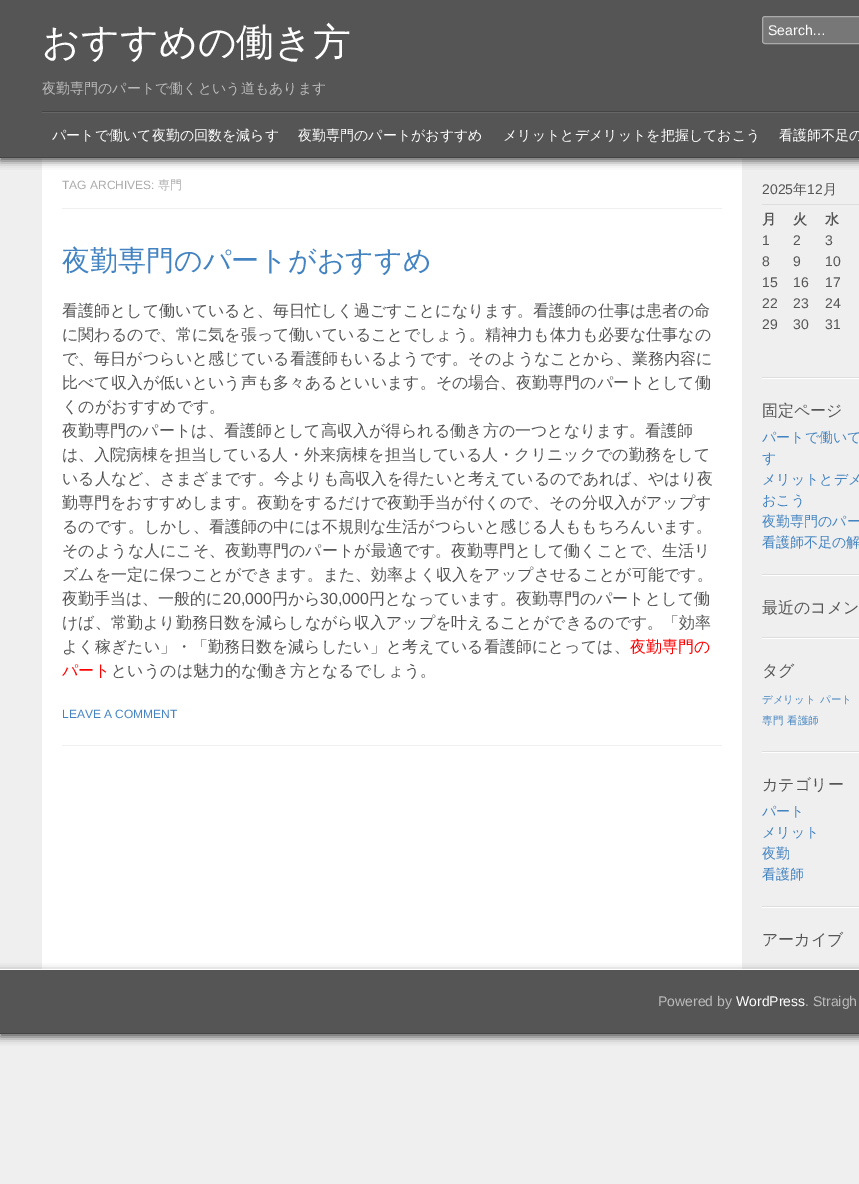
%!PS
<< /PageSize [859 1184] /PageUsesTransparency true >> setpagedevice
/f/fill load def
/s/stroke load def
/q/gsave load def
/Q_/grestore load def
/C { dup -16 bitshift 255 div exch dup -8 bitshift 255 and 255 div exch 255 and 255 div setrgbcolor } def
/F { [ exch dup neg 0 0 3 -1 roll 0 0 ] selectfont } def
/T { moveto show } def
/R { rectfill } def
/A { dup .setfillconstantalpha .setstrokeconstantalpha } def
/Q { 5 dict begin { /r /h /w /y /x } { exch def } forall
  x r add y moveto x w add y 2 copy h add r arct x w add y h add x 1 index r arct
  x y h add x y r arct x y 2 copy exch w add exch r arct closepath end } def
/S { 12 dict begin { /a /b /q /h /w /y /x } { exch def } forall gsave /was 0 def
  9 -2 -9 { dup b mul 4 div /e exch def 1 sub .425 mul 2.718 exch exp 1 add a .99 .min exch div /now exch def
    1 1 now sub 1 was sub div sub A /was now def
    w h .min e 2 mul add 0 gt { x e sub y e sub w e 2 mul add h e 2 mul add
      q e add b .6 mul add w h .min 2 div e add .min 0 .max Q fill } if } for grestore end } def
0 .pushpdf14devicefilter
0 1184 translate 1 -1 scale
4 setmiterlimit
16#EFEFEF C
0 0 859 1184 R
16#FFFFFF C
42 158 700 811 R
16#555555 C
0 3 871 158 0 4 1 S
0 0 859 157 R
16#444444 C
0 157 859 1 R
42 111 817 1 R
/WenQuanYiZenHei-Medium 38 F
16#FFFFFF C
(おすすめの働き方) 42 55 T
/WenQuanYiZenHei-Medium 14 F
16#BBBBBB C
(夜勤専門のパートで働くという道もあります) 42 93 T
16#777777 C
762.5 16.5 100 27 2.5 Q q f Q_
16#AAAAAA C
s
/LiberationSans-Regular 14 F
16#FFFFFF C
(Search…) 768 35 T
16#666666 C
42 112 817 1 R
/WenQuanYiZenHei-Medium 14 F
16#FFFFFF C
(パートで働いて夜勤の回数を減らす) 52 140 T
(夜勤専門のパートがおすすめ) 298 140 T
(メリットとデメリットを把握しておこう) 503 140 T
(看護師不足の) 779 140 T
/LiberationSans-Regular 12 F
16#AAAAAA C
(TAG ARCHIVES:) 62 189 T
/WenQuanYiZenHei-Medium 12 F
(専門) 158 189 T
16#EFEFEF C
62 208 660 1 R
/WenQuanYiZenHei-Medium 28 F
16#4383C1 C
(夜勤専門のパートがおすすめ) 62 270 T
/WenQuanYiZenHei-Medium 16 F
16#555555 C
(看護師として働いていると、毎日忙しく過ごすことになります。看護師の仕事は患者の命) 62 316 T
(に関わるので、常に気を張って働いていることでしょう。精神力も体力も必要な仕事なの) 62 340 T
(で、毎日がつらいと感じている看護師もいるようです。そのようなことから、業務内容に) 62 364 T
(比べて収入が低いという声も多々あるといいます。その場合、夜勤専門のパートとして働) 62 388 T
(くのがおすすめです。) 62 412 T
(夜勤専門のパートは、看護師として高収入が得られる働き方の一つとなります。看護師) 62 436 T
(は、入院病棟を担当している人・外来病棟を担当している人・クリニックでの勤務をして) 62 460 T
(いる人など、さまざまです。今よりも高収入を得たいと考えているのであれば、やはり夜) 62 484 T
(勤専門をおすすめします。夜勤をするだけで夜勤手当が付くので、その分収入がアップす) 62 508 T
(るのです。しかし、看護師の中には不規則な生活がつらいと感じる人ももちろんいます。) 62 532 T
(そのような人にこそ、夜勤専門のパートが最適です。夜勤専門として働くことで、生活リ) 62 556 T
(ズムを一定に保つことができます。また、効率よく収入をアップさせることが可能です。) 62 580 T
(夜勤手当は、一般的に) 62 604 T
/LiberationSans-Regular 16 F
(20,000) 223 604 T
/WenQuanYiZenHei-Medium 16 F
(円から) 272 604 T
/LiberationSans-Regular 16 F
(30,000) 320 604 T
/WenQuanYiZenHei-Medium 16 F
(円となっています。夜勤専門のパートとして働) 369 604 T
(けば、常勤より勤務日数を減らしながら収入アップを叶えることができるのです。「効率) 62 628 T
(よく稼ぎたい」・「勤務日数を減らしたい」と考えている看護師にとっては、) 62 652 T
16#FF0000 C
(夜勤専門の) 630 652 T
(パート) 62 676 T
16#555555 C
(というのは魅力的な働き方となるでしょう。) 111 676 T
/LiberationSans-Regular 12 F
16#4383C1 C
(LEAVE A COMMENT) 62 718 T
16#EFEFEF C
62 745 660 1 R
16#DDDDDD C
762 377 97 1 R
762 204 97 1 R
/LiberationSans-Regular 14 F
16#555555 C
(2025) 762 194 T
/WenQuanYiZenHei-Medium 14 F
(年) 793 194 T
/LiberationSans-Regular 14 F
(12) 807 194 T
/WenQuanYiZenHei-Medium 14 F
(月) 823 194 T
/WenQuanYiZenHei-Bold 14 F
(月) 762 224 T
(火) 793 224 T
(水) 825 224 T
/LiberationSans-Regular 14 F
(1) 762 245 T
(2) 793 245 T
(3) 825 245 T
(8) 762 266 T
(9) 793 266 T
(10) 825 266 T
(15) 762 287 T
(16) 793 287 T
(17) 825 287 T
(22) 762 308 T
(23) 793 308 T
(24) 825 308 T
(29) 762 329 T
(30) 793 329 T
(31) 825 329 T
16#FFFFFF C
762 378 97 1 R
16#DDDDDD C
762 574 97 1 R
/WenQuanYiZenHei-Medium 16 F
16#555555 C
(固定ページ) 762 416 T
/WenQuanYiZenHei-Medium 14 F
16#4383C1 C
(パートで働いて) 762 442 T
(す) 762 463 T
(メリットとデメ) 762 484 T
(おこう) 762 505 T
(夜勤専門のパー) 762 526 T
(看護師不足の解) 762 547 T
16#FFFFFF C
762 575 97 1 R
16#DDDDDD C
762 637 97 1 R
/WenQuanYiZenHei-Medium 16 F
16#555555 C
(最近のコメン) 762 613 T
16#FFFFFF C
762 638 97 1 R
16#DDDDDD C
762 751 97 1 R
16#555555 C
(タグ) 762 676 T
/WenQuanYiZenHei-Medium 10.5 F
16#4383C1 C
(デメリット) 762 703 T
(パート) 820 703 T
(専門) 762 724 T
(看護師) 787 724 T
16#FFFFFF C
762 752 97 1 R
16#DDDDDD C
762 906 97 1 R
/WenQuanYiZenHei-Medium 16 F
16#555555 C
(カテゴリー) 762 790 T
/WenQuanYiZenHei-Medium 14 F
16#4383C1 C
(パート) 762 816 T
(メリット) 762 837 T
(夜勤) 762 858 T
(看護師) 762 879 T
16#FFFFFF C
762 907 97 1 R
/WenQuanYiZenHei-Medium 16 F
16#555555 C
(アーカイブ) 762 945 T
0 972 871 65 0 4 1 S
0 970 859 63 R
16#FFFFFF C
0 969 859 1 R
16#444444 C
0 1033 859 1 R
/LiberationSans-Regular 14 F
16#BBBBBB C
(Powered by) 658 1006 T
16#FFFFFF C
(WordPress) 736 1006 T
16#BBBBBB C
(. Straigh) 805 1006 T
.poppdf14devicefilter showpage
